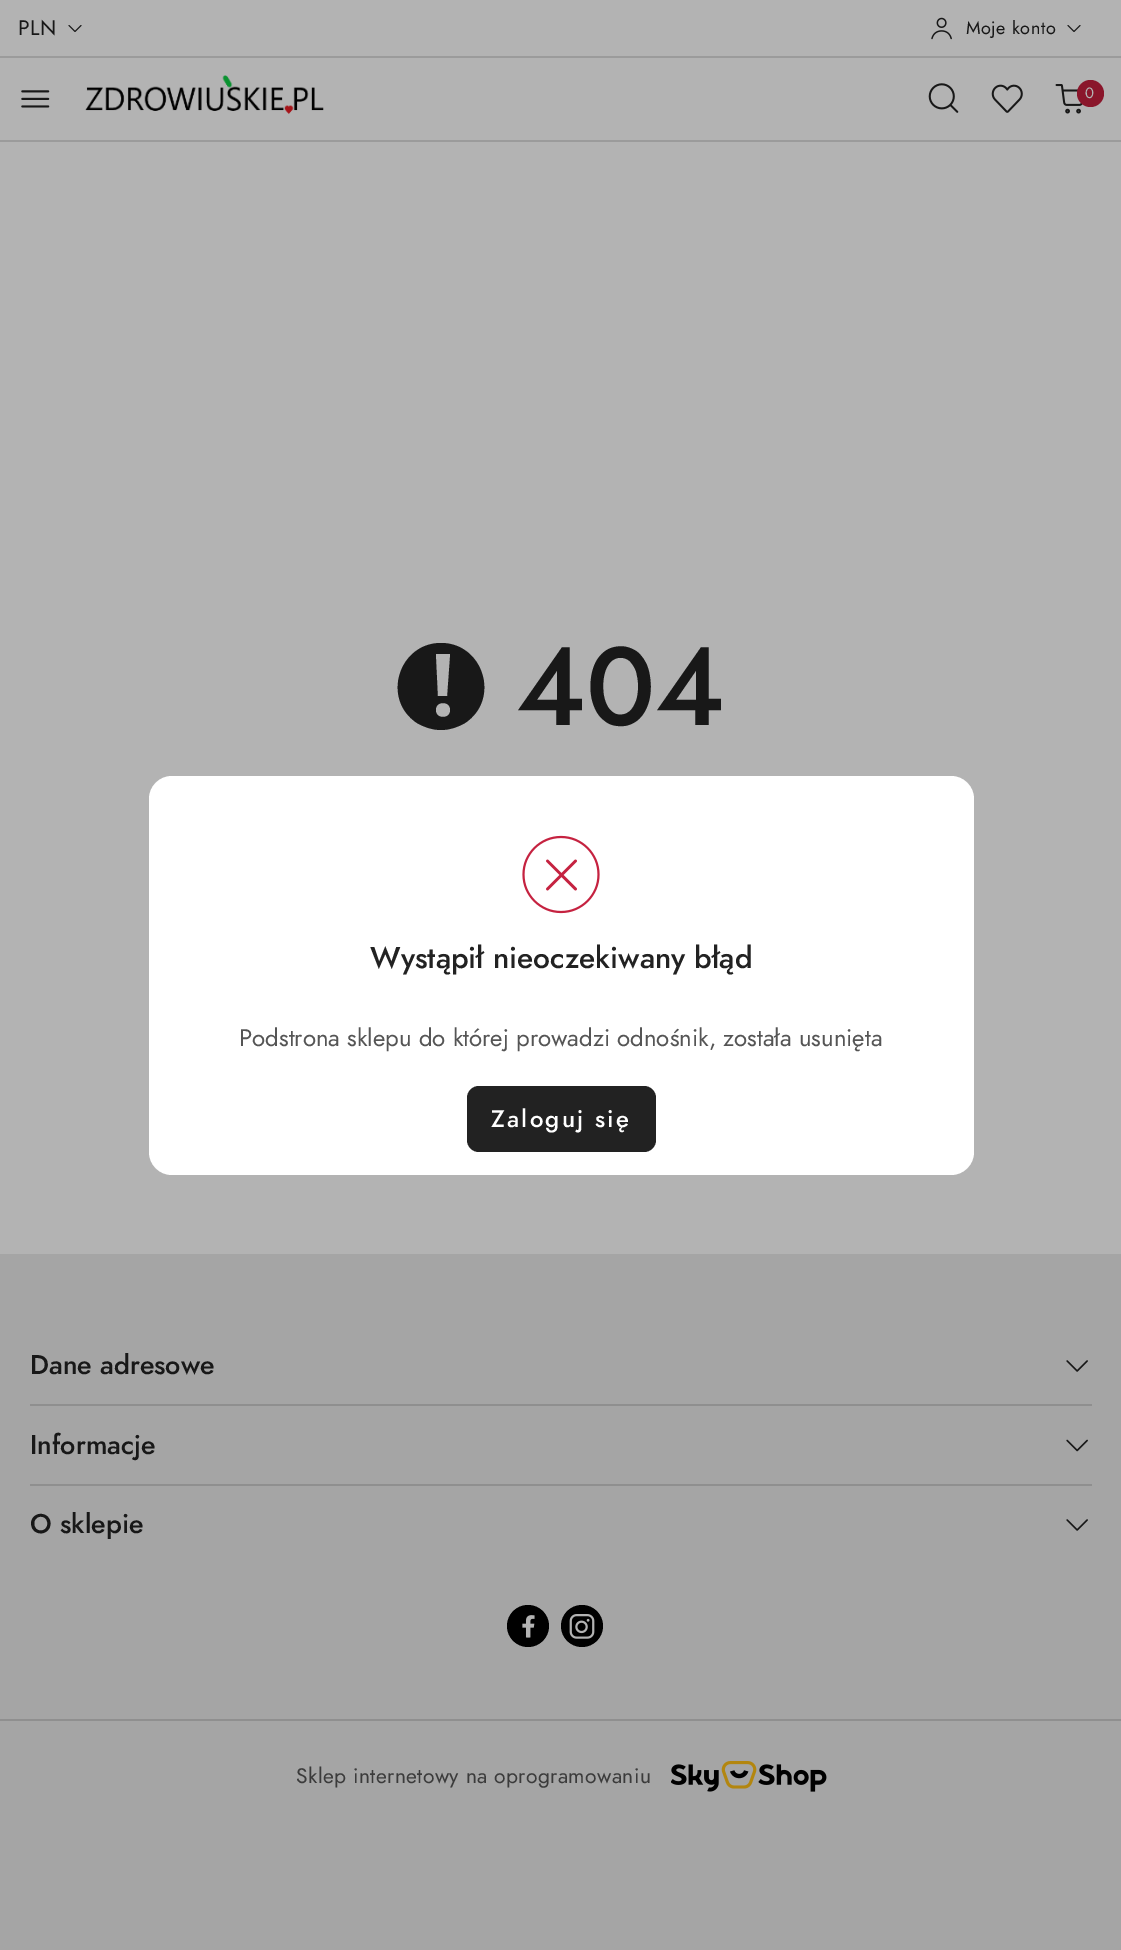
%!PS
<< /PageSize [1121 1950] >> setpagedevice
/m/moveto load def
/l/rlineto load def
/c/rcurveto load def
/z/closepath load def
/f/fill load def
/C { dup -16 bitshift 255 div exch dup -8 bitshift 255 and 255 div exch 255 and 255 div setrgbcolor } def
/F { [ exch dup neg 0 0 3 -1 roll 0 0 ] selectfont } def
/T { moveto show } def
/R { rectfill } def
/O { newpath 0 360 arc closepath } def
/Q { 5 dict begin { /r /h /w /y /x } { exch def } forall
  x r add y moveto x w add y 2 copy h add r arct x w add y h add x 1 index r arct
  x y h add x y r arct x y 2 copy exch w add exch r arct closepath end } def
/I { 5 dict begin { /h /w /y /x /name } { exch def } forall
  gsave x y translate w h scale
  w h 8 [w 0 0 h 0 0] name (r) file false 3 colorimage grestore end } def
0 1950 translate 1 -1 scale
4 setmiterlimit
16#B3B3B3 C
0 0 1121 1950 R
/Jost-Regular 21 F
16#181818 C
18 35 m .4 0 (PLN) ashow
(1.rgb) 68 25 14 7 I
(2.rgb) 931 17 21 23 I
/Jost-Regular 18 F
966 34 m .5 0 (Moje konto) ashow
(1.rgb) 1067 25 14 7 I
16#9B9B9B C
0 56 1121 2 R
(3.rgb) 21 90 29 18 I
(4.rgb) 85 75 239 39 I
(5.rgb) 928 83 31 30 I
(6.rgb) 991 84 32 29 I
(7.rgb) 1055 84 28 30 I
16#8A162B C
1090.5 93.5 13.5 O f
/Jost-Regular 15 F
16#B3B3B3 C
(0) 1085 98 T
16#9B9B9B C
0 140 1121 2 R
16#181818 C
441 643 m 42 0 60 56 24 80 c -7 4 -15 7 -24 7 c -9 0 -17 -3 -24 -7 c -36 -24 -18 -80 24 -80 c z f
16#B3B3B3 C
436 654 m 14 0 l -3 42 l -9 0 l z 436 710 m 0 -9 14 -9 14 0 c 0 9 -14 9 -14 0 c z f
/Jost-Medium 111 F
16#181818 C
(404) 516 725 T
16#A5A5A5 C
0 1254 1121 696 R
16#8F8F8F C
30 1404 1062 2 R
/Jost-Medium 27 F
16#181818 C
(Dane adresowe) 30 1374 T
(8.rgb) 1066 1360 22 12 I
16#8F8F8F C
30 1484 1062 2 R
16#181818 C
(Informacje) 30 1454 T
(9.rgb) 1066 1439 22 13 I
(O sklepie) 30 1533 T
(8.rgb) 1066 1519 22 12 I
16#000000 C
528 1626 21 O f
(10.rgb) 522 1615 13 23 I
582 1626 21 O f
(11.rgb) 569 1614 26 25 I
16#8F8F8F C
0 1719 1121 2 R
/Jost-Regular 21 F
16#3B3B3B C
296 1783 m .4 0 (Sklep internetowy na oprogramowaniu) ashow
(12.rgb) 671 1761 156 31 I
16#FFFFFF C
149 776 825 399 23 Q f
(13.rgb) 522 835 78 79 I
/Jost-Medium 30 F
16#222222 C
(Wystąpił nieoczekiwany błąd) 370 968 T
/Jost-Regular 24 F
16#555555 C
(Podstrona sklepu do której prowadzi odnośnik, została usunięta) 239 1046 T
16#222222 C
467 1086 189 66 12 Q f
/Jost-Medium 24 F
16#FFFFFF C
491 1127 m 2.25 0 (Zaloguj się) ashow
showpage
